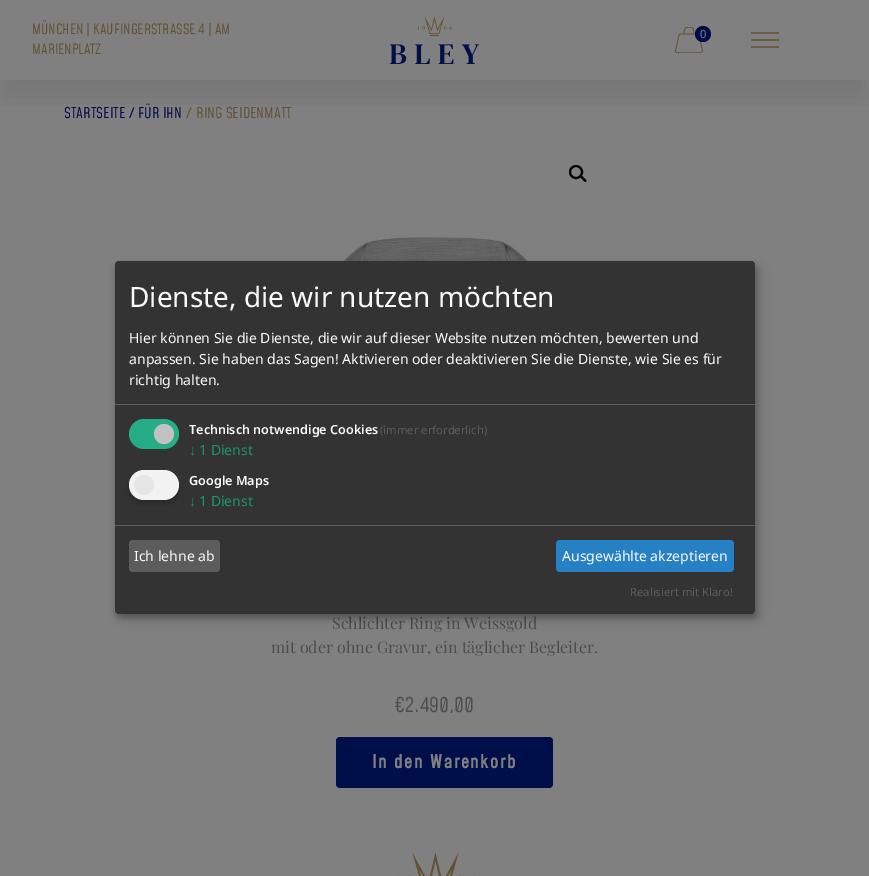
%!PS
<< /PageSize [869 876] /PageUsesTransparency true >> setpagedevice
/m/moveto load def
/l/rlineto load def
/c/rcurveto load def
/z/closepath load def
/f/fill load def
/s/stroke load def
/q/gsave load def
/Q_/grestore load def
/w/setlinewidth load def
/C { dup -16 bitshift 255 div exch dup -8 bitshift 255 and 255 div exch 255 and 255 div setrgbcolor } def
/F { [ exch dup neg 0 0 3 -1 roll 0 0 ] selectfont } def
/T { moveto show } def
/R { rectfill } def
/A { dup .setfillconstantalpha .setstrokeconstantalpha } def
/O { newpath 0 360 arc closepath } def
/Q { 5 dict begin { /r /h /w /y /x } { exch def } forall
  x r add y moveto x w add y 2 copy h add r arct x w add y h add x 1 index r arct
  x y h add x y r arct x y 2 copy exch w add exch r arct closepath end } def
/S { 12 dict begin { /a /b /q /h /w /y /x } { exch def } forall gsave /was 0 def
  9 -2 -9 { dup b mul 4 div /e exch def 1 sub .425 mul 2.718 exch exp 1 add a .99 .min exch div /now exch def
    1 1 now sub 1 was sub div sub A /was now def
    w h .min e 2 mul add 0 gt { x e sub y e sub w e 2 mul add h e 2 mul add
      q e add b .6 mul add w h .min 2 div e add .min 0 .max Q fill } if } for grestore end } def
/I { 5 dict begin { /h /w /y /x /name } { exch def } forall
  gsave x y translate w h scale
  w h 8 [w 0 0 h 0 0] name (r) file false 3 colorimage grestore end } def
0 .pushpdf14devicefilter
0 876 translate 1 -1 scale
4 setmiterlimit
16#808080 C
0 0 869 876 R
q
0 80 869 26 rectclip
16#000000 C
5 25 859 70 0 12.5 .1 S
Q_
/Mohave-Regular 14 F
16#625233 C
(MÜNCHEN | KAUFINGERSTRASSE 4 | AM) 32 34 T
(MARIENPLATZ) 32 54 T
(1.rgb) 390 16 89 48 I
(2.rgb) 675 27 28 26 I
16#000E4A C
703 34 8 O f
/NotoSans-Regular 11.25 F
16#808080 C
(0) 700 38 T
q
751 26 28 28 rectclip
16#625233 C
1.2 w
1 setlinecap
751 33 m 28 0 l 751 40 m 28 0 l 751 47 m 28 0 l s
Q_
/Mohave-Regular 14.75 F
16#000E4A C
(STARTSEITE) 64 118 T
/NotoSans-Regular 14.75 F
(/) 129 118 T
/Mohave-Regular 14.75 F
(FÜR IHN) 138 118 T
/NotoSans-Regular 14.75 F
16#625233 C
(/) 186 118 T
/Mohave-Regular 14.75 F
(RING SEIDENMATT) 196 118 T
16#000000 C
2 w
576 172 6 O s
580.5 176 m 1 -1 3 1.5 3.5 2 c .5 .5 3.5 2.5 2 3.5 c -1 1.5 -3 -1.5 -3.5 -2 c -.5 -.5 -3 -2.5 -2 -3.5 c z f
(3.rgb) 323 237 225 24 I
/PlayfairDisplay-Regular 16 F
16#4D4D4D C
(Schlichter Ring in Weissgold) 332 629 T
(mit oder ohne Gravur, ein täglicher Begleiter.) 271 653 T
/Mohave-Regular 20 F
(€2.490,00) 394 712 T
16#000E4A C
336 737 217 51 4 Q f
/Mohave-Bold 18 F
16#808080 C
372 768 m 1.75 0 (In den Warenkorb) ashow
16#000000 C
120 266 640 353 4 5 .19 S
115 265 640 353 4 3 .2 S
16#333333 C
115 261 640 353 4 Q f
16#5C5C5C C
115 404 640 1 R
/NotoSans-Regular 28 F
16#FAFAFA C
(Dienste, die wir nutzen möchten) 129 307 T
/NotoSans-Regular 14 F
(Hier können Sie die Dienste, die wir auf dieser Website nutzen möchten, bewerten und) 129 343 T
(anpassen. Sie haben das Sagen! Aktivieren oder deaktivieren Sie die Dienste, wie Sie es für) 129 364 T
(richtig halten.) 129 385 T
16#27AD85 C
129 419 50 30 15 Q f
16#C2C2C2 C
164 434 10 O f
/NotoSans-SemiBold 12.6 F
16#FAFAFA C
(Technisch notwendige Cookies) 189 434 T
/NotoSans-Regular 11.25 F
16#5C5C5C C
(\(immer erforderlich\)) 380 434 T
/LiberationSans-Regular 14 F
16#1A936F C
(↓) 189 455 T
/NotoSans-Regular 14 F
(1 Dienst) 199 455 T
16#000000 C
129 474 50 30 15 3 .2 S
16#F2F2F2 C
129 470 50 30 15 Q f
16#E6E6E6 C
144 485 10 O f
/NotoSans-SemiBold 12.6 F
16#FAFAFA C
(Google Maps) 189 485 T
/LiberationSans-Regular 14 F
16#1A936F C
(↓) 189 506 T
/NotoSans-Regular 14 F
(1 Dienst) 199 506 T
16#5C5C5C C
115 525 640 1 R
129 540 91 32 4 Q f
16#FAFAFA C
(Ich lehne ab) 134 561 T
16#2581C4 C
556 540 178 32 4 Q f
16#FAFAFA C
(Ausgewählte akzeptieren) 562 561 T
/NotoSans-Regular 11.25 F
16#5C5C5C C
(Realisiert mit Klaro!) 630 596 T
(4.rgb) 398 852 78 24 I
.poppdf14devicefilter showpage
